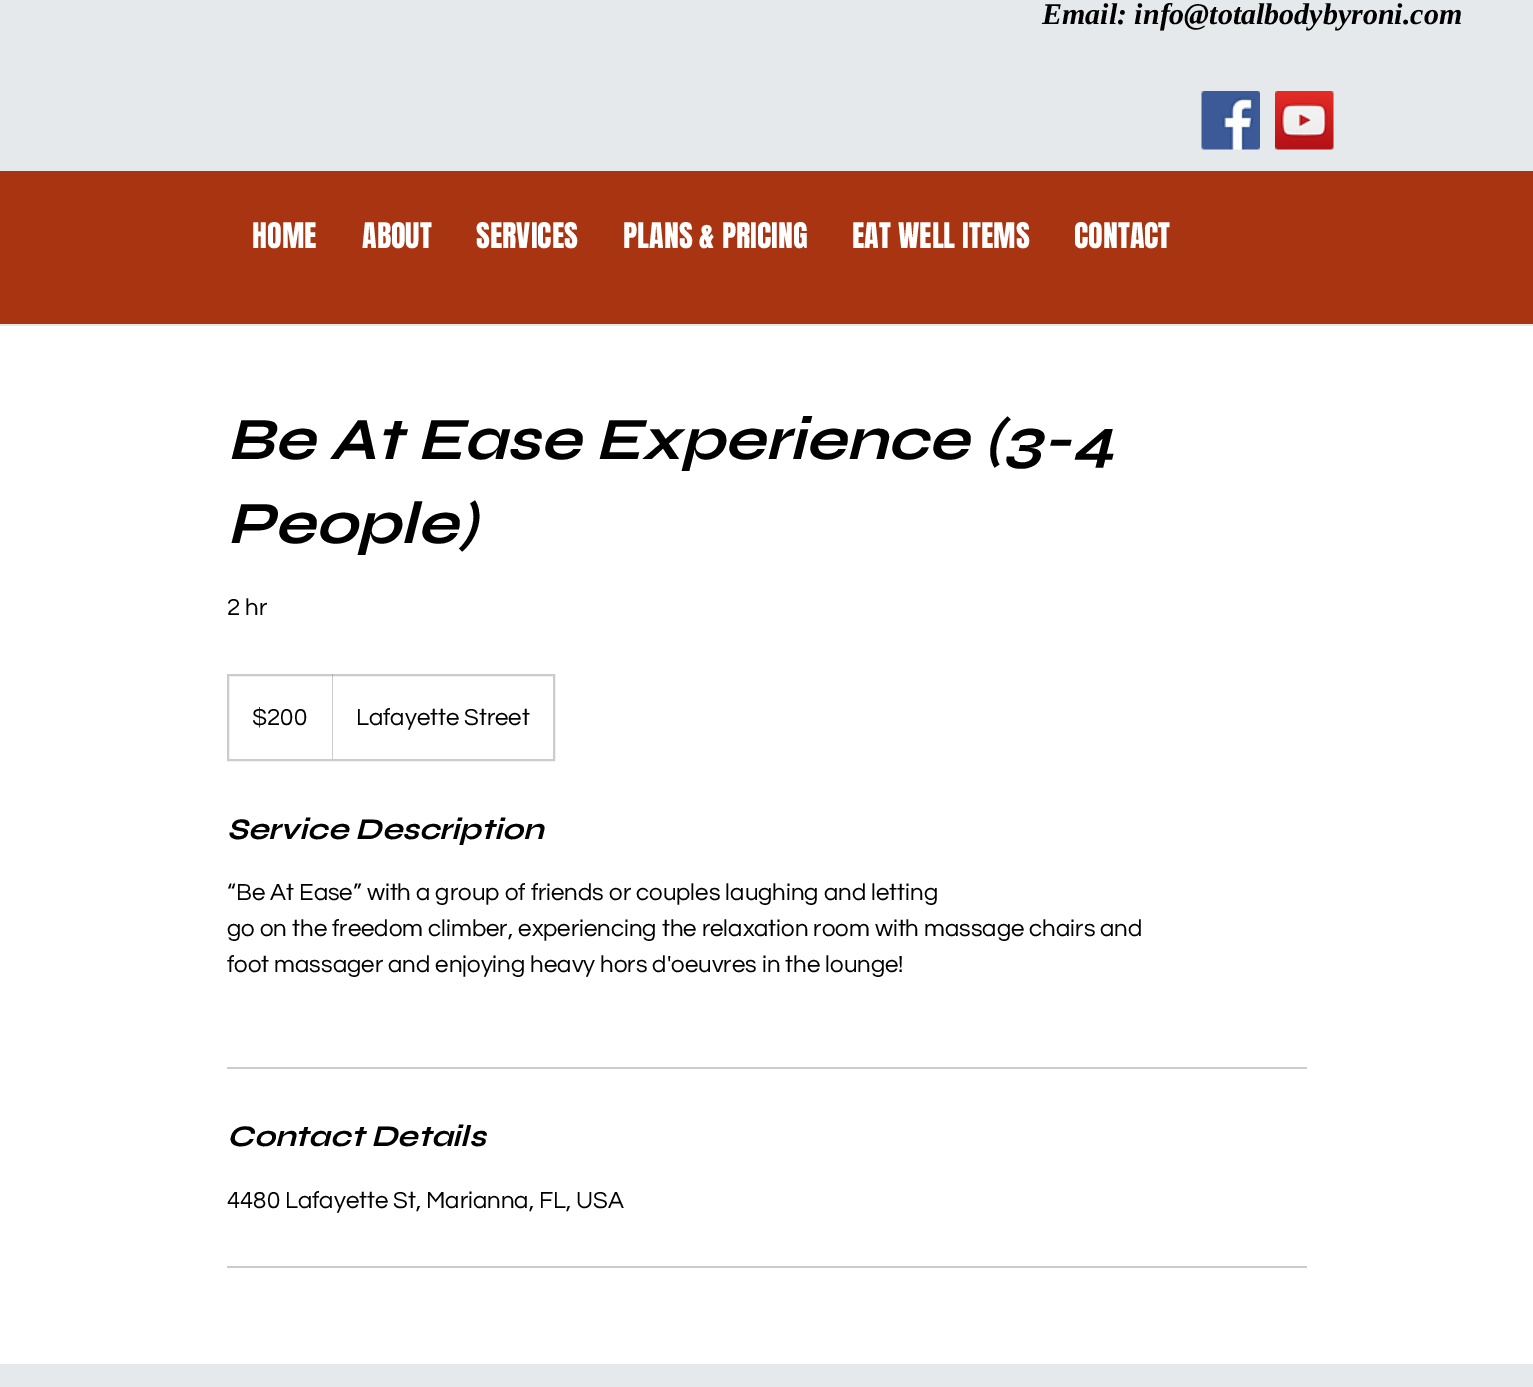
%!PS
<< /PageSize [1533 1387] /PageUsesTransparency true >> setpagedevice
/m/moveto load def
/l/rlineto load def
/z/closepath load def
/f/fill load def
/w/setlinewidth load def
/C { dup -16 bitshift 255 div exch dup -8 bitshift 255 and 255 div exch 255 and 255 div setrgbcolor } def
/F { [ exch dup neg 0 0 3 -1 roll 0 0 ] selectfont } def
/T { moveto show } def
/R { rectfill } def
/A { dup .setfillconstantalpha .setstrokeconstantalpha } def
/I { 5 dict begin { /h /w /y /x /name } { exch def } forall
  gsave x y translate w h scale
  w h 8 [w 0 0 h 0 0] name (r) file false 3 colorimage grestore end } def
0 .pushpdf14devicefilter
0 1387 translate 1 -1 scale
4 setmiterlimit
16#E6E9EB C
0 0 1533 1387 R
/LiberationSerif-BoldItalic 30 F
16#000000 C
(Email: info@totalbodybyroni.com) 1042 24 T
(1.rgb) 1201 91 59 59 I
(2.rgb) 1275 91 59 59 I
16#A83411 C
0 171 1533 153 R
/Anton-Regular 30 F
16#FFFFFF C
(HOME) 252 248 T
(ABOUT) 362 248 T
(SERVICES) 476 248 T
(PLANS & PRICING) 623 248 T
(EAT WELL ITEMS) 852 248 T
(CONTACT) 1074 248 T
0 326 1533 1038 R
/Syne-BoldItalic 60 F
16#000000 C
(Be At Ease Experience \(3-4) 227 459 T
(People\)) 227 543 T
/Questrial-Regular 24 F
(2 hr) 227 615 T
16#CCCCCC C
2 w
228 675 326 85 rectstroke
16#000000 C
($200) 252 725 T
0.2 A
332 759 m 0 -85 l 1 1 l 0 84 l z f
1 A
(Lafayette Street) 356 725 T
/Syne-BoldItalic 30 F
(Service Description) 227 839 T
/Questrial-Regular 24 F
(“Be At Ease” with a group of friends or couples laughing and letting) 227 900 T
(go on the freedom climber, experiencing the relaxation room with massage chairs and) 227 936 T
(foot massager and enjoying heavy hors d'oeuvres in the lounge!) 227 972 T
16#CCCCCC C
227 1067 1080 2 R
/Syne-BoldItalic 30 F
16#000000 C
(Contact Details) 227 1146 T
/Questrial-Regular 24 F
(4480 Lafayette St, Marianna, FL, USA) 227 1208 T
16#CCCCCC C
227 1266 1080 2 R
.poppdf14devicefilter showpage
